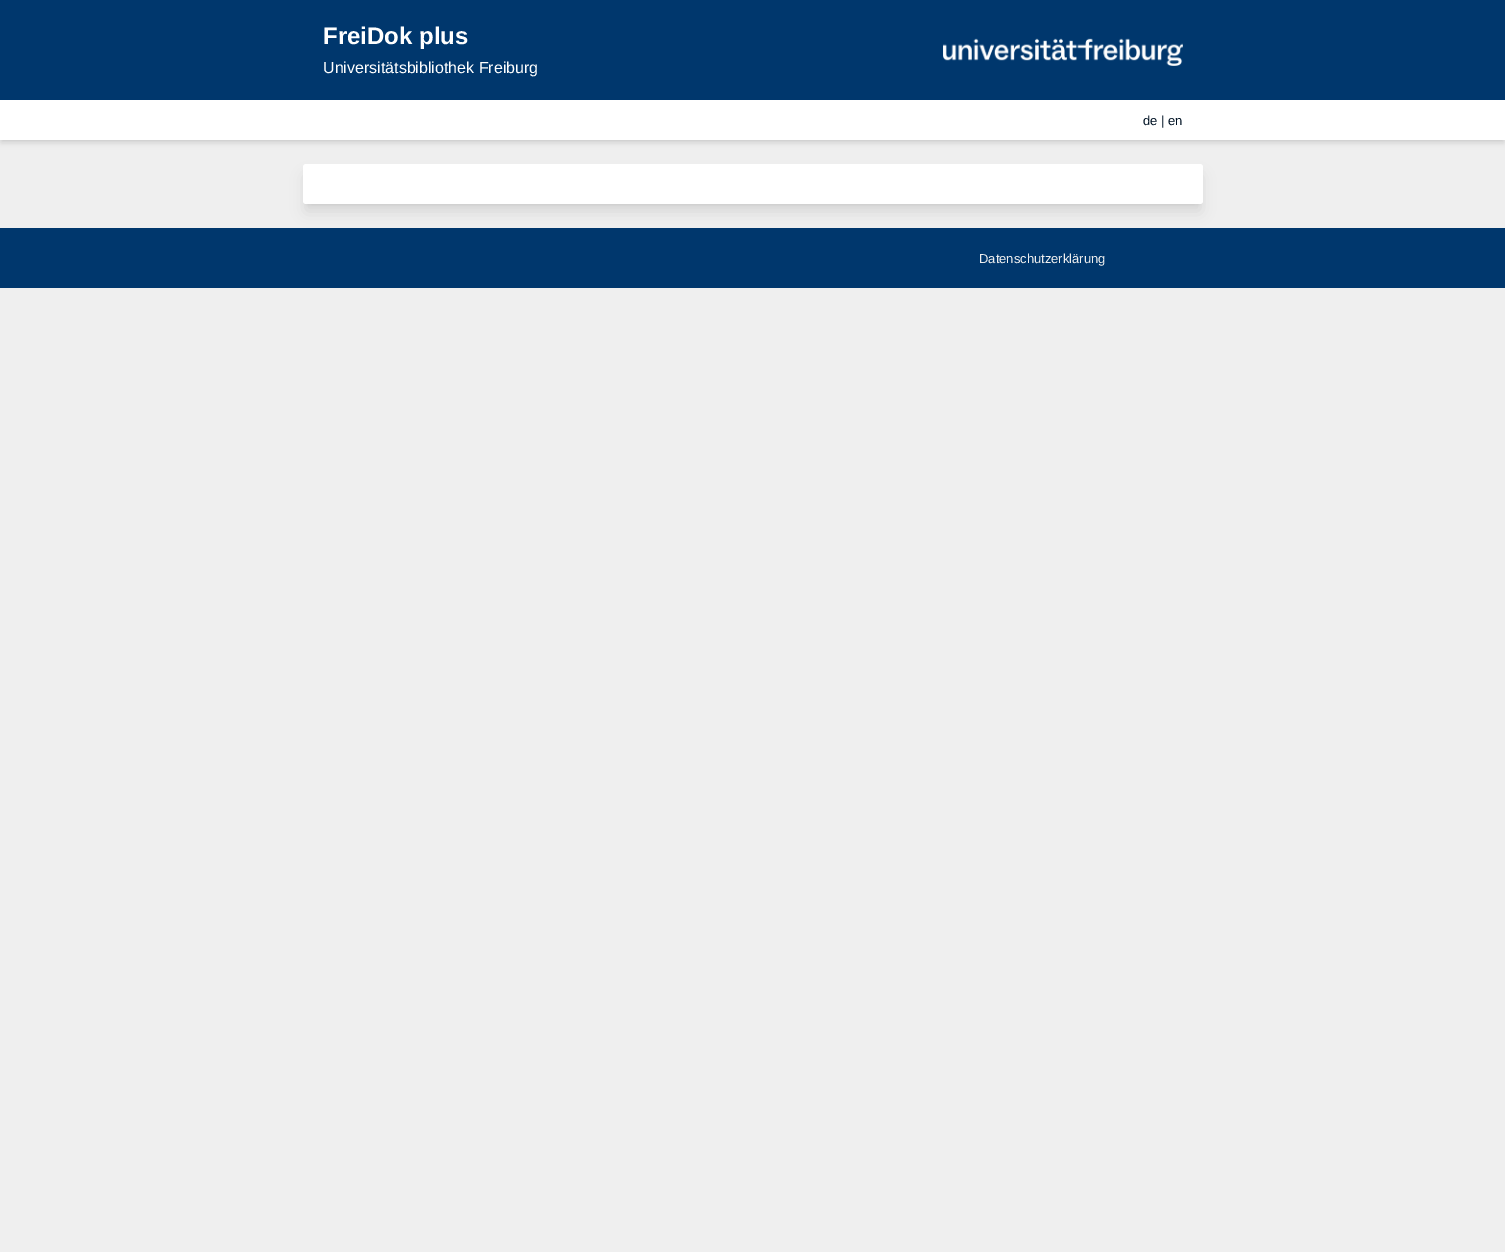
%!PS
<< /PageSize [1505 1252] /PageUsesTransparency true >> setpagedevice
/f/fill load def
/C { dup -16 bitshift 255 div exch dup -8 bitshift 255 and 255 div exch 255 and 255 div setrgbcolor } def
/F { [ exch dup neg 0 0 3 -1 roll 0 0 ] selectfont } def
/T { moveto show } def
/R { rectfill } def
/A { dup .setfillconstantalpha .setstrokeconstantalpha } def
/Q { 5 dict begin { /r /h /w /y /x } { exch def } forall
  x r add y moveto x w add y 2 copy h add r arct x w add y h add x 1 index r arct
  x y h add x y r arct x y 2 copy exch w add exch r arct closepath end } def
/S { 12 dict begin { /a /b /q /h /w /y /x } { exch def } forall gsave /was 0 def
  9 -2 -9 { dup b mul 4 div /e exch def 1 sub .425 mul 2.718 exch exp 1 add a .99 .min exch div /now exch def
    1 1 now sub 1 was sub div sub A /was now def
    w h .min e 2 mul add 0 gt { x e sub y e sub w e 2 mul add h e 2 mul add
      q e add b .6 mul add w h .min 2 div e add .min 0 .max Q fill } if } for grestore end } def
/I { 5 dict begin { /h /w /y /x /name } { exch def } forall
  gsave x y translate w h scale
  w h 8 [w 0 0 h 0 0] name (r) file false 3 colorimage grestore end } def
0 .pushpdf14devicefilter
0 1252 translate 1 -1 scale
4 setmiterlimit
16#EFEFEF C
0 0 1505 1252 R
16#00376D C
0 0 1505 100 R
/LiberationSans-Bold 24 F
16#FFFFFF C
(FreiDok plus) 323 44 T
/LiberationSans-Regular 16 F
(Universitätsbibliothek Freiburg) 323 73 T
(1.rgb) 943 38 240 28 I
16#000000 C
2 104 1501 36 0 2 .1 S
1 105 1503 38 0 3 .1 S
16#FFFFFF C
0 100 1505 40 R
/LiberationSans-Regular 13 F
16#001224 C
(de | en) 1143 125 T
16#000000 C
307 172 892 32 0 3 .1 S
16#00376D C
0 228 1505 60 R
16#000000 C
306 177 894 34 0 7.5 .1 S
16#FFFFFF C
303 164 900 40 3 Q f
16#EFEFEF C
(Datenschutzerklärung) 979 263 T
.poppdf14devicefilter showpage
